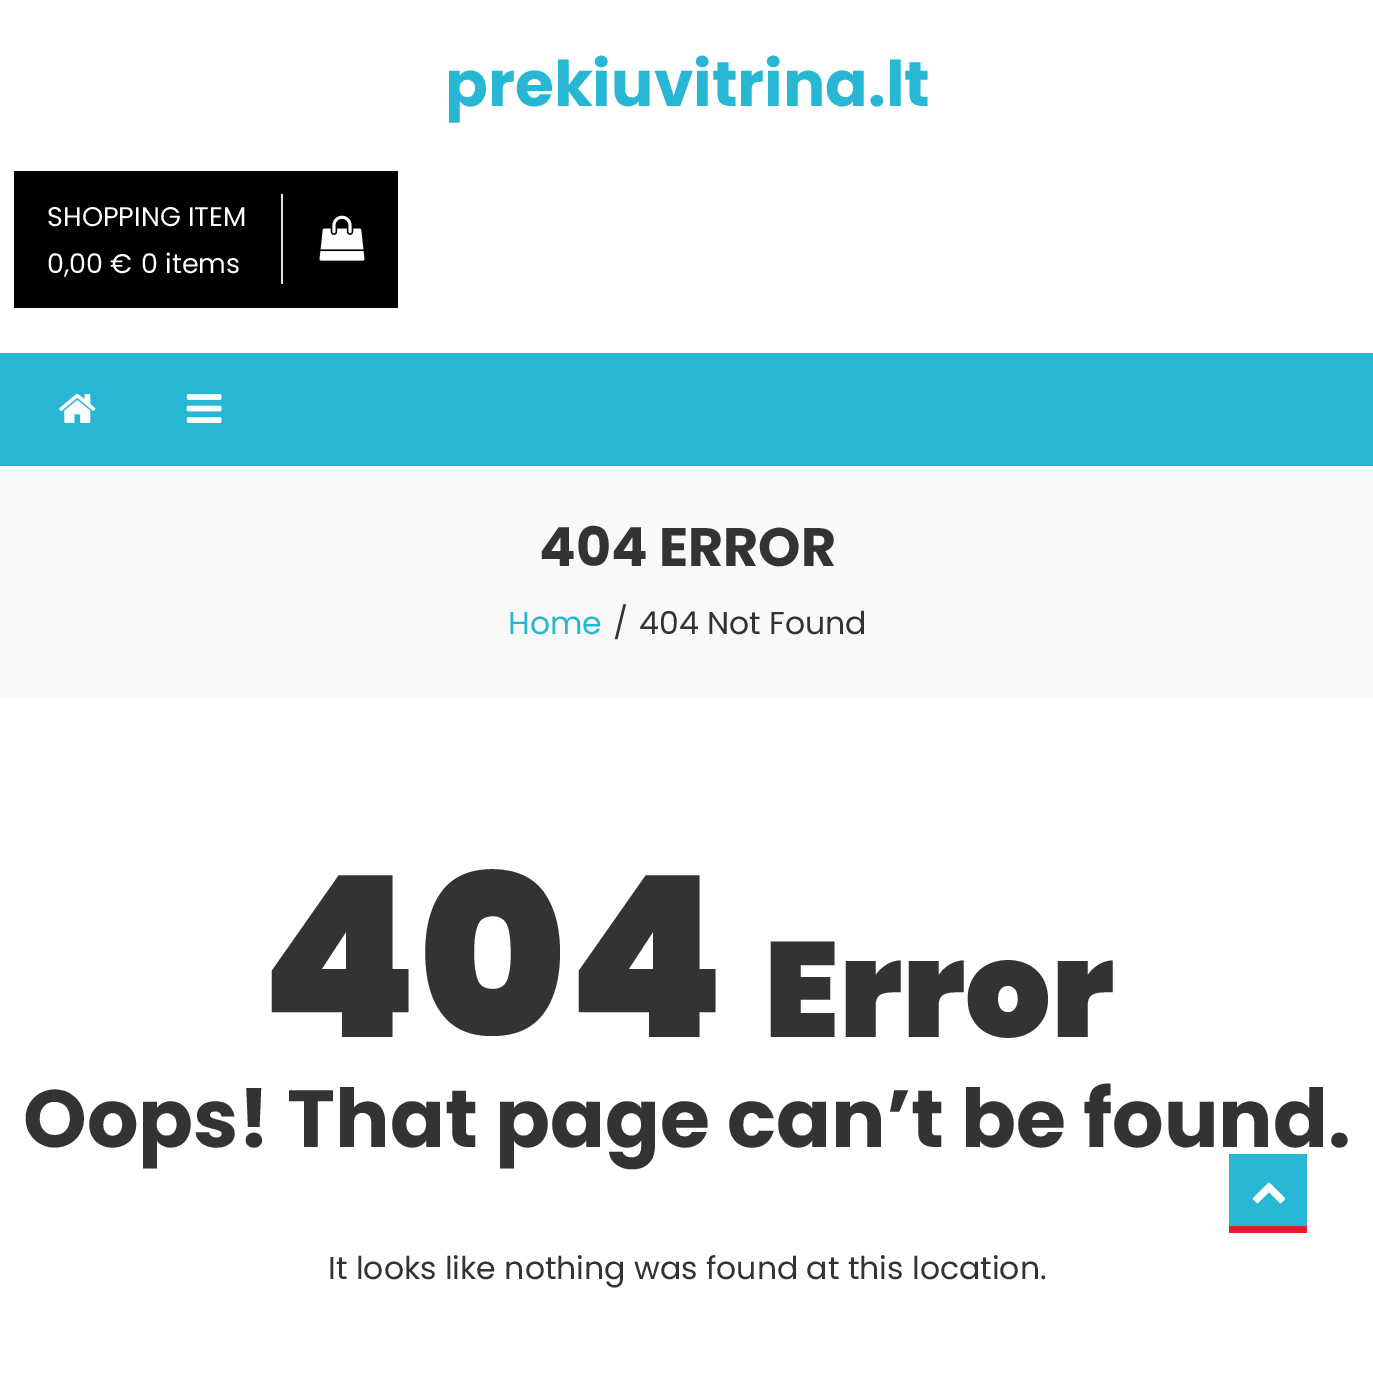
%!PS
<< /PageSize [1373 1389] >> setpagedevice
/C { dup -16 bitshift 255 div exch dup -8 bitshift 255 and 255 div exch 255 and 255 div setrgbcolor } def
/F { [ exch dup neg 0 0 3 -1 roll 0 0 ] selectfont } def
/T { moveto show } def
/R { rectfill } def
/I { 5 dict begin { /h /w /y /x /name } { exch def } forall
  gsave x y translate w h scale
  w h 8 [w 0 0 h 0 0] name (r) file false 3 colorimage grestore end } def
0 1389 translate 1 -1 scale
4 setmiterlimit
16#FFFFFF C
0 0 1373 1389 R
/Poppins-Bold 63 F
16#27B6D4 C
(prekiuvitrina.lt) 445 106 T
16#000000 C
14 171 384 137 R
/Poppins-Regular 27 F
16#FFFFFF C
(SHOPPING ITEM) 47 226 T
(0,00 €) 47 273 T
(0 items) 141 273 T
16#E1E1E1 C
281 194 2 90 R
(1.rgb) 319 215 46 46 I
16#27B6D4 C
0 353 1373 113 R
(2.rgb) 59 394 37 29 I
(3.rgb) 186 394 36 29 I
16#F9F9F9 C
0 466 1373 232 R
/Poppins-Bold 54 F
16#333333 C
(404 ERROR) 539 566 T
/Poppins-Regular 31.5 F
16#27B6D4 C
(Home) 508 634 T
16#333333 C
(/) 613 634 T
(404 Not Found) 639 634 T
/Poppins-Black 225 F
(404) 260 1037 T
/Poppins-Black 135 F
(Error) 764 1037 T
/Poppins-Bold 81 F
(Oops! That page can’t be found.) 23 1147 T
/Poppins-Regular 31.5 F
(It looks like nothing was found at this location.) 328 1279 T
16#27B6D4 C
1229 1154 78 72 R
16#DD1F26 C
1229 1226 78 7 R
(4.rgb) 1252 1182 34 22 I
showpage
